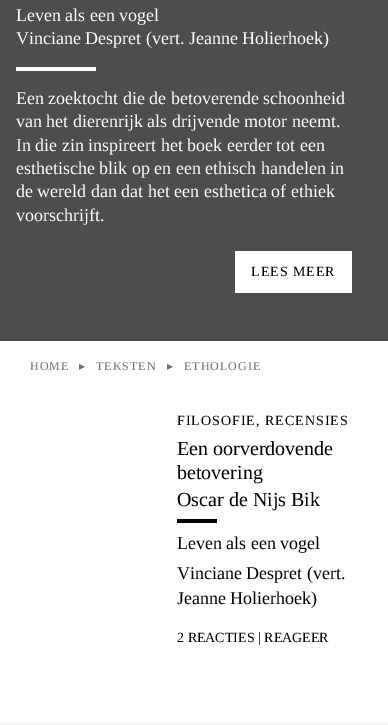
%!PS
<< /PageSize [388 725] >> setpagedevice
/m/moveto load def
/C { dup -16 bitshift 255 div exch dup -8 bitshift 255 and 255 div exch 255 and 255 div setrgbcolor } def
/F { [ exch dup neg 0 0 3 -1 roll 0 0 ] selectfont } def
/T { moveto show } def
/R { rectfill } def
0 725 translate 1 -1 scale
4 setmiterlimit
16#FFFFFF C
0 0 388 725 R
16#4D4D4D C
0 0 388 341 R
/LiberationSerif-Regular 18 F
16#FFFFFF C
(Leven als een vogel) 16 21 T
(Vinciane Despret \(vert. Jeanne Holierhoek\)) 16 44 T
16 67 80 4 R
(Een zoektocht die de betoverende schoonheid) 16 104 T
(van het dierenrijk als drijvende motor neemt.) 16 127 T
(In die zin inspireert het boek eerder tot een) 16 151 T
(esthetische blik op en een ethisch handelen in) 16 174 T
(de wereld dan dat het een esthetica of ethiek) 16 197 T
(voorschrijft.) 16 221 T
235 251 117 42 R
/LiberationSerif-Regular 14 F
16#000000 C
251 276 m 1 0 (LEES MEER) ashow
/LiberationSerif-Regular 12 F
16#64717C C
30 370 m 1 0 (HOME) ashow
/DejaVuSans-Regular 12 F
79 370 m 1 0 (▸) ashow
/LiberationSerif-Regular 12 F
96 370 m 1 0 (TEKSTEN) ashow
/DejaVuSans-Regular 12 F
167 370 m 1 0 (▸) ashow
/LiberationSerif-Regular 12 F
184 370 m 1 0 (ETHOLOGIE) ashow
/LiberationSerif-Regular 14 F
16#000000 C
177 425 m 1 0 (FILOSOFIE, RECENSIES) ashow
/LiberationSerif-Regular 20 F
(Een oorverdovende) 177 455 T
(betovering) 177 479 T
(Oscar de Nijs Bik) 177 506 T
177 519 40 4 R
/LiberationSerif-Regular 18 F
(Leven als een vogel) 177 549 T
(Vinciane Despret \(vert.) 177 579 T
(Jeanne Holierhoek\)) 177 604 T
/LiberationSerif-Regular 14 F
(2 REACTIES | REAGEER) 177 642 T
16#F5F5F5 C
0 723 388 2 R
showpage
